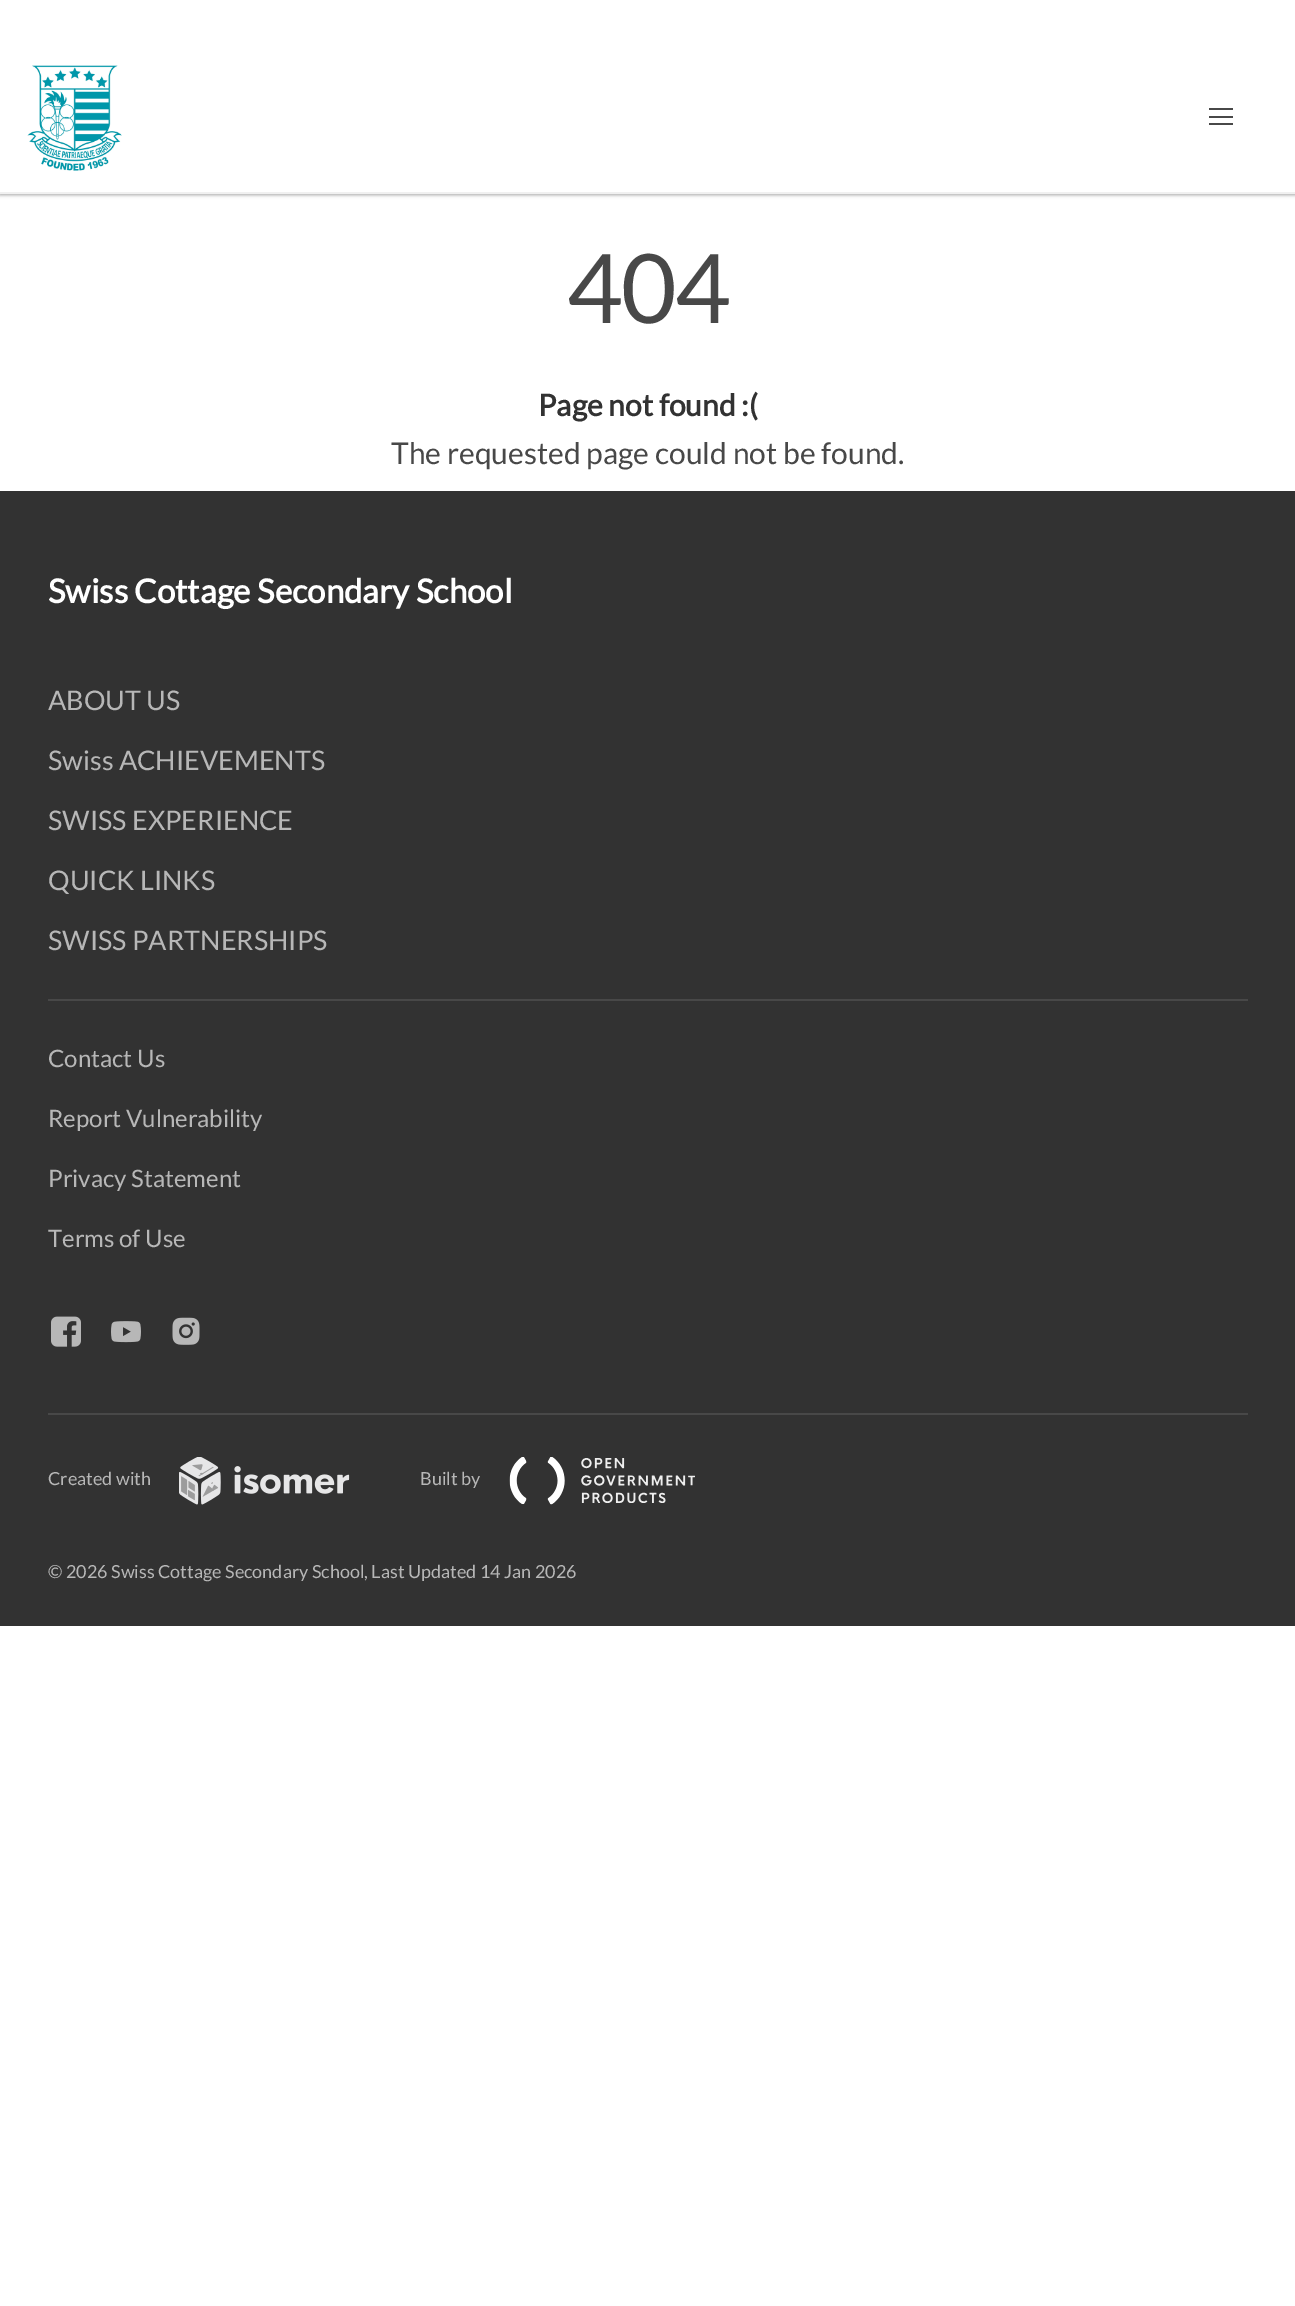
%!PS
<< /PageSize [1295 2306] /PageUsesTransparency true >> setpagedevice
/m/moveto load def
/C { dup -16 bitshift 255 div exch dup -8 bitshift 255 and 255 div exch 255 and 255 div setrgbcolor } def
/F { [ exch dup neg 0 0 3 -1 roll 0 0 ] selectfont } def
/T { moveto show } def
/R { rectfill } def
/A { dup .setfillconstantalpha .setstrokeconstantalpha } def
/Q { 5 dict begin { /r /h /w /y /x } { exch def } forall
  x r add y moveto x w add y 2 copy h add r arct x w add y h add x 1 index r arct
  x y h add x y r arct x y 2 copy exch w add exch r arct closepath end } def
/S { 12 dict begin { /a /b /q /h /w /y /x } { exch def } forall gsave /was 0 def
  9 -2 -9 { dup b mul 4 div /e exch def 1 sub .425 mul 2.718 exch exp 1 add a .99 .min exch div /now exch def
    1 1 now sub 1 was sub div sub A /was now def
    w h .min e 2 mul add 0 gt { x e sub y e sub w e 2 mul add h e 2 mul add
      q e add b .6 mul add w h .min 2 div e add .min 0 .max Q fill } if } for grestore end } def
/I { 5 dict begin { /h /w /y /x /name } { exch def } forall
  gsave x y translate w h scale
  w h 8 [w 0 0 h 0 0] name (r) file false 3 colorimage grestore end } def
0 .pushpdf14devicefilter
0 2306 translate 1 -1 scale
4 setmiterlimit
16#FFFFFF C
0 0 1295 2306 R
16#000000 C
0 -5 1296 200 0 1.5 .24 S
0 -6 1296 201 0 2 .12 S
16#FFFFFF C
0 0 1295 192 R
16#F0F0F0 C
0 192 1295 2 R
(1.rgb) 27 65 95 106 I
16#484848 C
1209 108 24 2 R
1209 116 24 2 R
1209 123 24 2 R
/Lato-Regular 96 F
567 323 m -1.5 0 (404) ashow
/Lato-Bold 30 F
16#323232 C
(Page not found :\() 538 416 T
/Lato-Regular 30 F
16#484848 C
(The requested page could not be found.) 391 464 T
16#323232 C
0 491 1295 1135 R
/Lato-Bold 33 F
16#FFFFFF C
(Swiss Cottage Secondary School) 48 603 T
/Lato-Regular 27 F
16#B7B7B7 C
(ABOUT US) 48 710 T
(Swiss ACHIEVEMENTS) 48 770 T
(SWISS EXPERIENCE) 48 830 T
(QUICK LINKS) 48 890 T
(SWISS PARTNERSHIPS) 48 950 T
16#484848 C
48 999 1200 2 R
/Lato-Regular 24 F
16#B7B7B7 C
(Contact Us) 48 1067 T
(Report Vulnerability) 48 1127 T
(Privacy Statement) 48 1187 T
(Terms of Use) 48 1247 T
(2.rgb) 51 1316 30 31 I
(3.rgb) 111 1321 30 22 I
(4.rgb) 172 1317 28 28 I
16#484848 C
48 1413 1200 2 R
/Lato-Regular 18 F
16#B7B7B7 C
(Created with) 48 1485 T
(5.rgb) 179 1457 171 48 I
(Built by) 420 1485 T
(6.rgb) 509 1457 186 48 I
(© 2026 Swiss Cottage Secondary School, Last Updated 14 Jan 2026) 48 1578 T
.poppdf14devicefilter showpage
